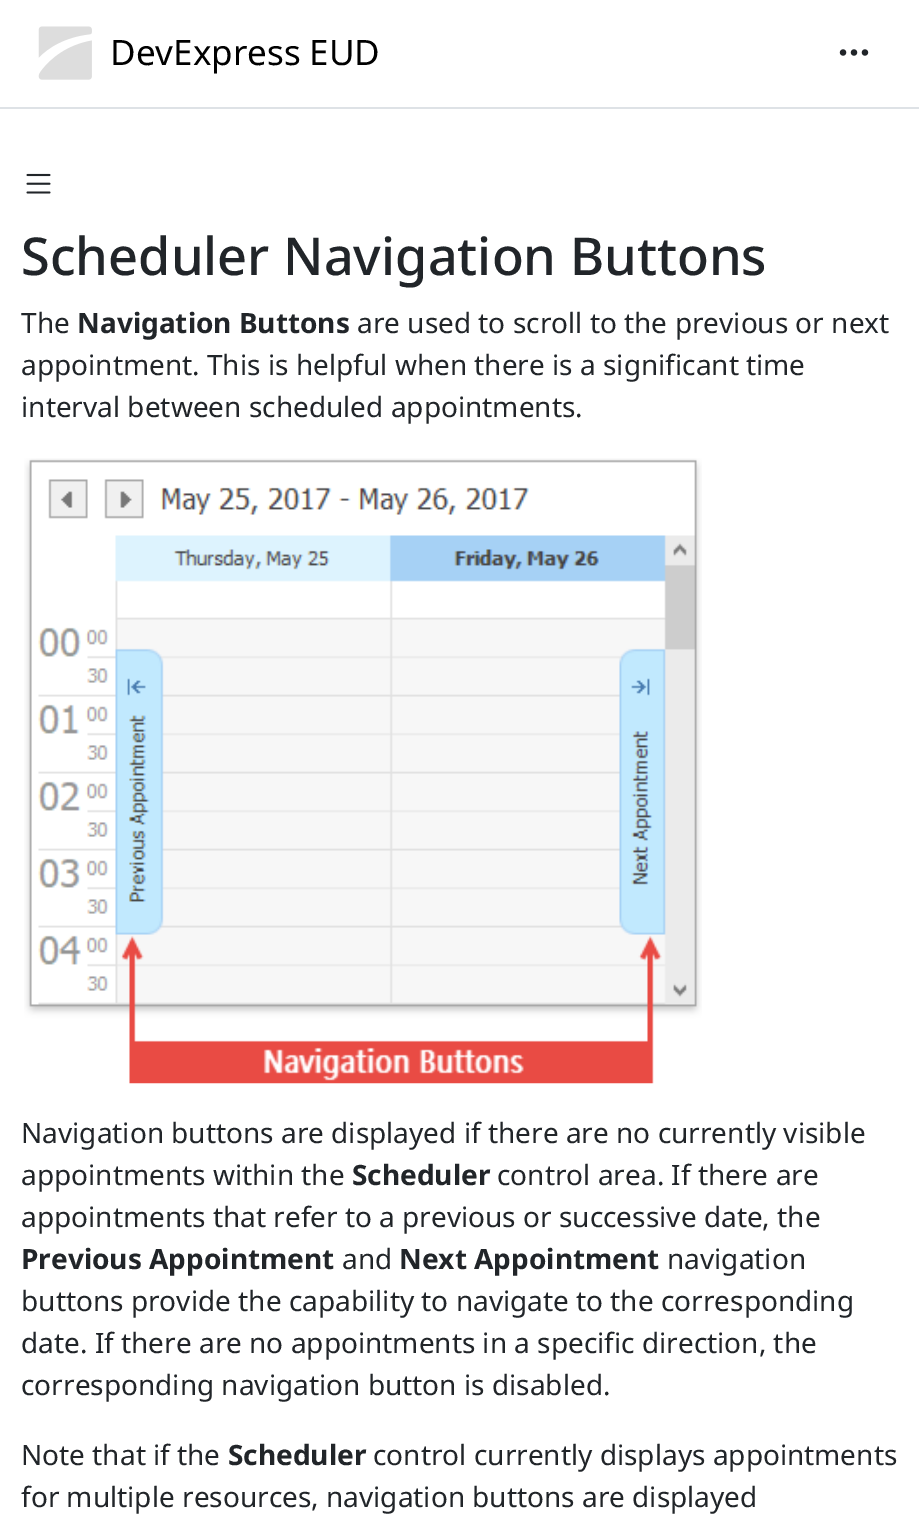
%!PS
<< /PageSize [919 1530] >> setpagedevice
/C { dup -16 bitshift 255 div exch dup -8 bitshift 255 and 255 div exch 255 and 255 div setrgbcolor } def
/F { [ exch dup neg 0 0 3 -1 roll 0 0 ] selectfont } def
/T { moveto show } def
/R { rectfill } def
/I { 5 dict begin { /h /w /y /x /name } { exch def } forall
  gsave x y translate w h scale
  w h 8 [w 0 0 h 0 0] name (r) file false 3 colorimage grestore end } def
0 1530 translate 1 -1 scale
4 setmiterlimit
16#FFFFFF C
0 0 919 1530 R
16#DEE2E6 C
0 107 919 2 R
(1.rgb) 38 26 54 54 I
/NotoSans-Regular 35 F
16#000000 C
(DevExpress EUD) 110 65 T
(2.rgb) 839 49 30 7 I
(3.rgb) 26 173 25 21 I
/NotoSans-Medium 52.25 F
16#212529 C
(Scheduler Navigation Buttons) 21 275 T
/NotoSans-Regular 28 F
(The) 21 333 T
/NotoSans-Bold 28 F
(Navigation Buttons) 77 333 T
/NotoSans-Regular 28 F
(are used to scroll to the previous or next) 357 333 T
(appointment. This is helpful when there is a significant time) 21 375 T
(interval between scheduled appointments.) 21 417 T
(4.rgb) 24 458 678 626 I
(Navigation buttons are displayed if there are no currently visible) 21 1143 T
(appointments within the) 21 1185 T
/NotoSans-Bold 28 F
(Scheduler) 352 1185 T
/NotoSans-Regular 28 F
(control area. If there are) 497 1185 T
(appointments that refer to a previous or successive date, the) 21 1227 T
/NotoSans-Bold 28 F
(Previous Appointment) 21 1269 T
/NotoSans-Regular 28 F
(and) 342 1269 T
/NotoSans-Bold 28 F
(Next Appointment) 399 1269 T
/NotoSans-Regular 28 F
(navigation) 667 1269 T
(buttons provide the capability to navigate to the corresponding) 21 1311 T
(date. If there are no appointments in a specific direction, the) 21 1353 T
(corresponding navigation button is disabled.) 21 1395 T
(Note that if the) 21 1465 T
/NotoSans-Bold 28 F
(Scheduler) 228 1465 T
/NotoSans-Regular 28 F
(control currently displays appointments) 373 1465 T
(for multiple resources, navigation buttons are displayed) 21 1507 T
showpage
